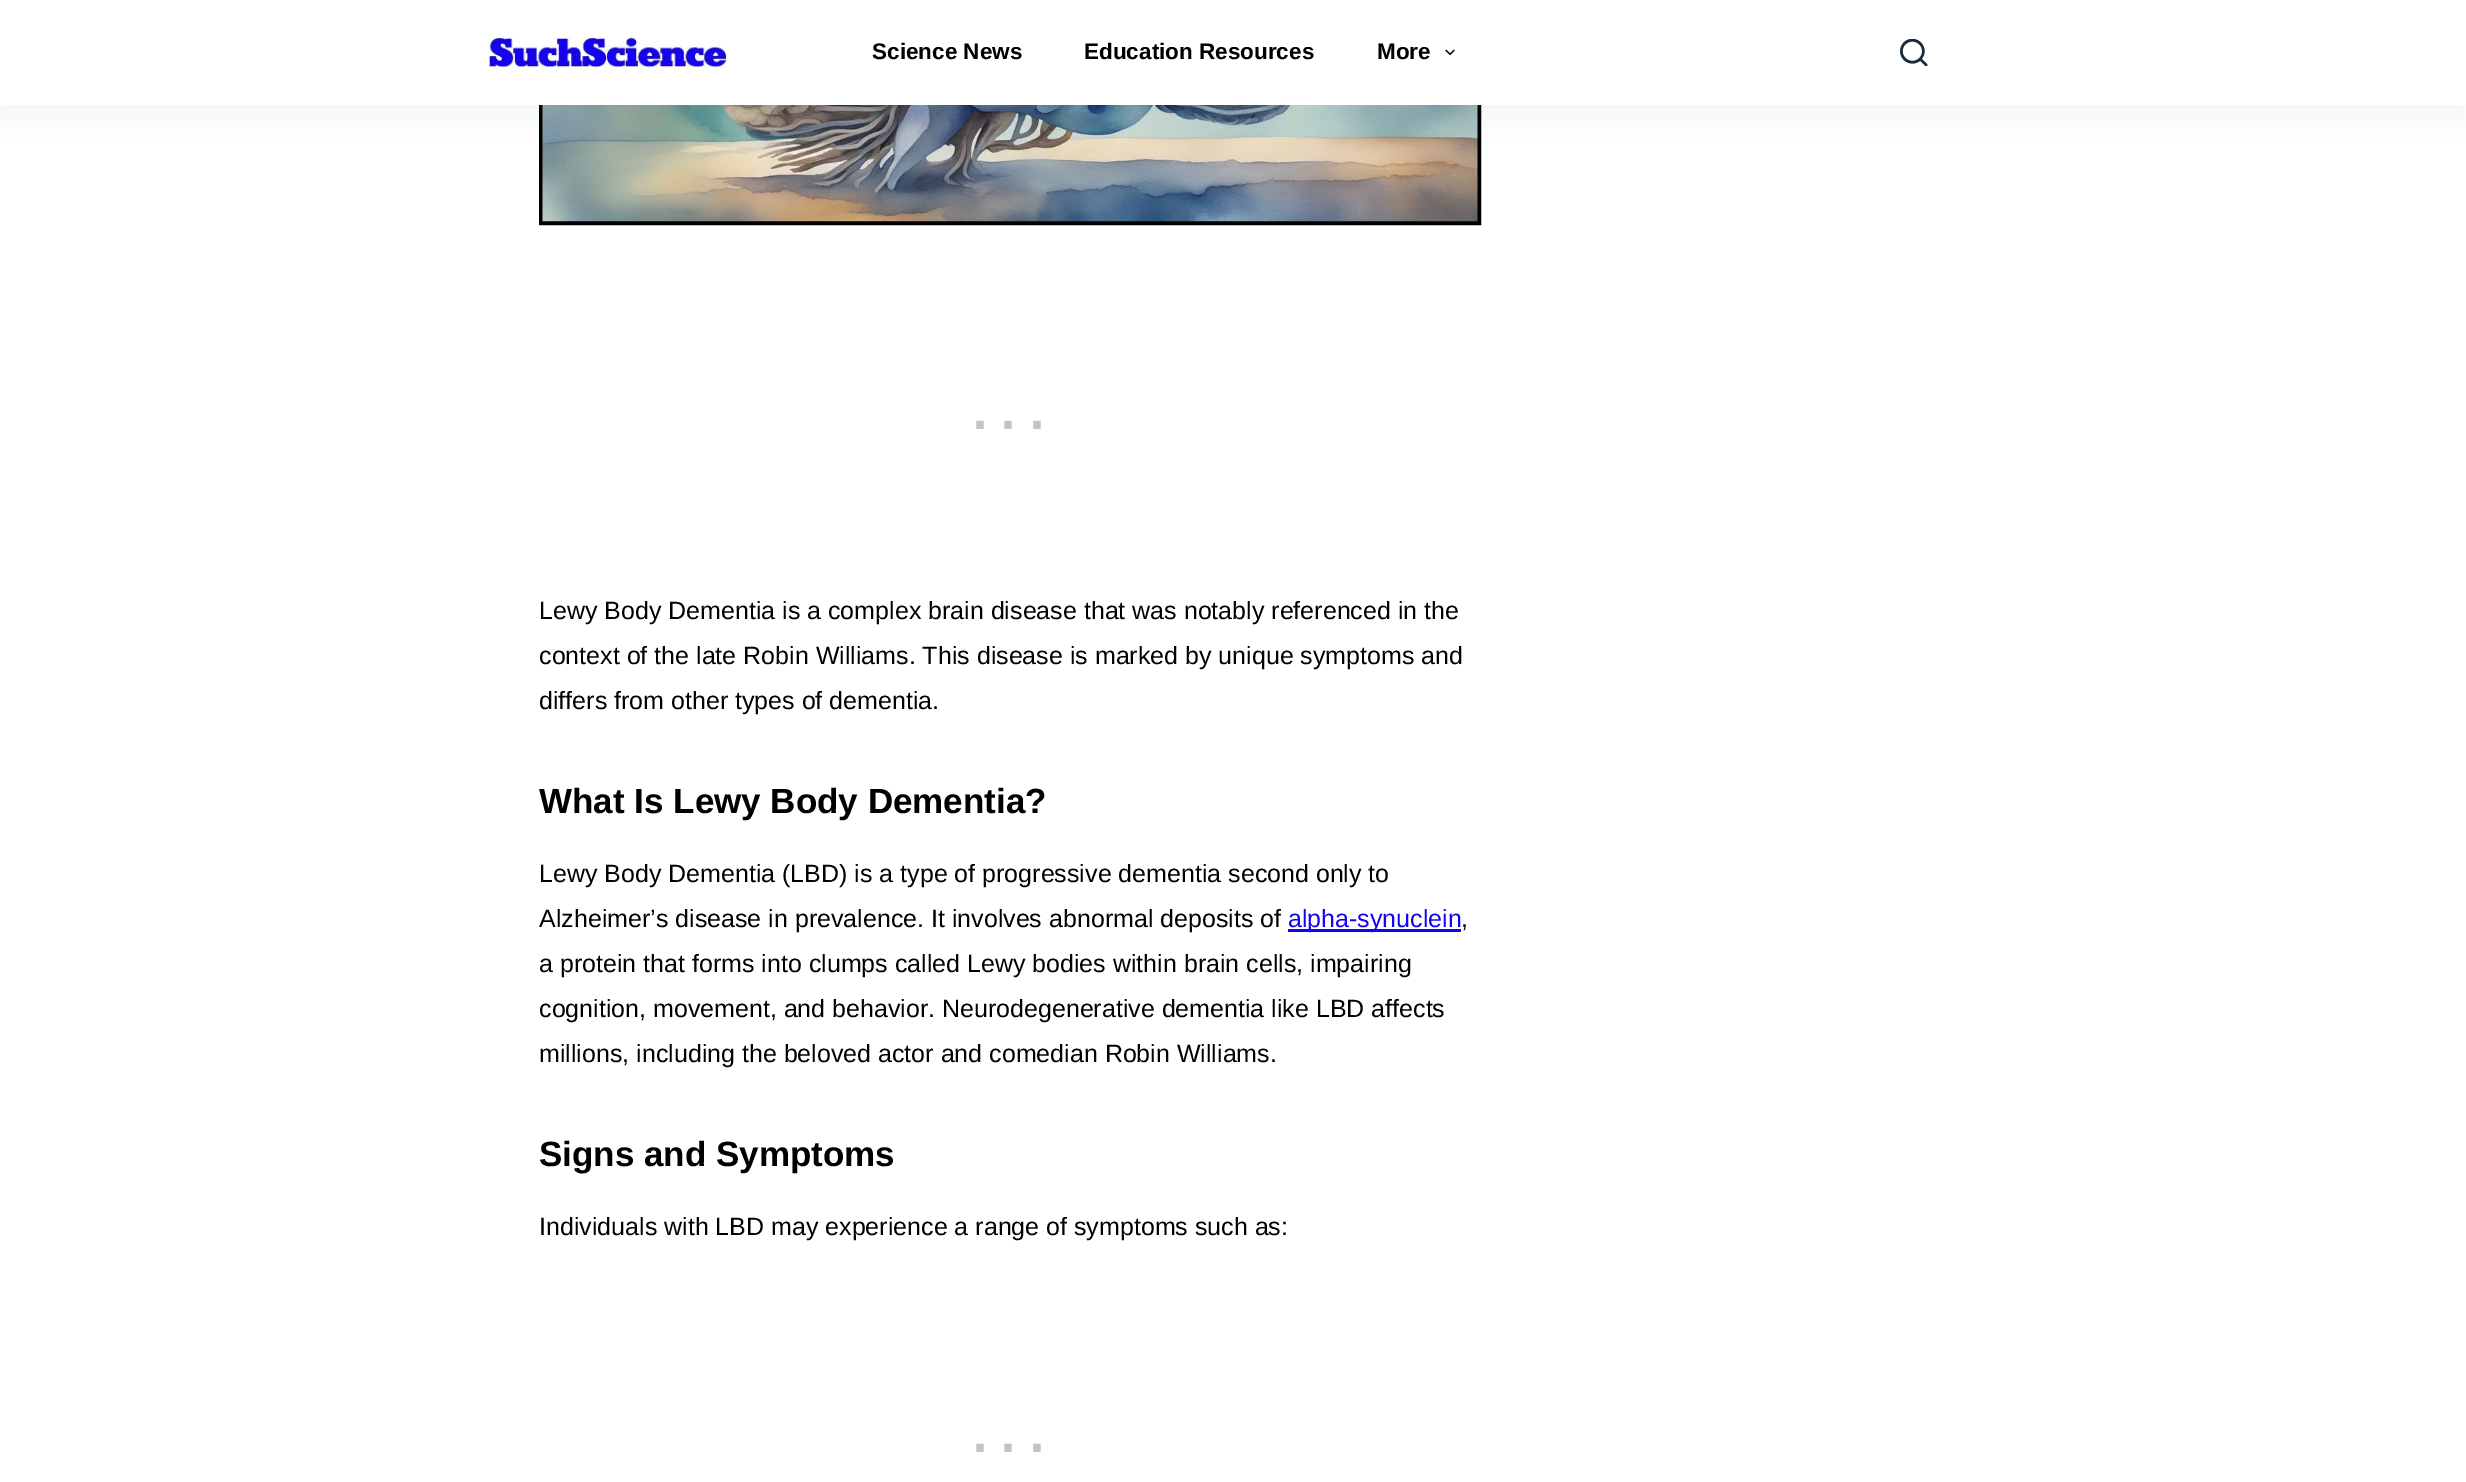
%!PS
<< /PageSize [2466 1482] /PageUsesTransparency true >> setpagedevice
/m/moveto load def
/w/setlinewidth load def
/C { dup -16 bitshift 255 div exch dup -8 bitshift 255 and 255 div exch 255 and 255 div setrgbcolor } def
/F { [ exch dup neg 0 0 3 -1 roll 0 0 ] selectfont } def
/T { moveto show } def
/R { rectfill } def
/A { dup .setfillconstantalpha .setstrokeconstantalpha } def
/Q { 5 dict begin { /r /h /w /y /x } { exch def } forall
  x r add y moveto x w add y 2 copy h add r arct x w add y h add x 1 index r arct
  x y h add x y r arct x y 2 copy exch w add exch r arct closepath end } def
/S { 12 dict begin { /a /b /q /h /w /y /x } { exch def } forall gsave /was 0 def
  9 -2 -9 { dup b mul 4 div /e exch def 1 sub .425 mul 2.718 exch exp 1 add a .99 .min exch div /now exch def
    1 1 now sub 1 was sub div sub A /was now def
    w h .min e 2 mul add 0 gt { x e sub y e sub w e 2 mul add h e 2 mul add
      q e add b .6 mul add w h .min 2 div e add .min 0 .max Q fill } if } for grestore end } def
/I { 5 dict begin { /h /w /y /x /name } { exch def } forall
  gsave x y translate w h scale
  w h 8 [w 0 0 h 0 0] name (r) file false 3 colorimage grestore end } def
0 .pushpdf14devicefilter
0 1482 translate 1 -1 scale
4 setmiterlimit
16#FFFFFF C
0 0 2466 1482 R
16#000000 C
4 w
541 -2 938 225 rectstroke
(4.rgb) 542 105 936 117 I
16#2C3E50 C
0 13 2466 105 0 12.5 .05 S
16#FFFFFF C
0 0 2466 105 R
(1.rgb) 488 37 240 31 I
/LiberationSans-Bold 22.5 F
16#000000 C
(Science News) 872 59 T
(Education Resources) 1084 59 T
(More) 1377 59 T
(2.rgb) 1445 49 10 7 I
(3.rgb) 1900 39 28 27 I
/LiberationSans-Regular 78 F
16#C4C4C4 C
967 446 m 2.5 0 (···) ashow
/LiberationSans-Regular 25 F
16#000000 C
(Lewy Body Dementia is a complex brain disease that was notably referenced in the) 539 619 T
(context of the late Robin Williams. This disease is marked by unique symptoms and) 539 664 T
(differs from other types of dementia.) 539 709 T
/LiberationSans-Bold 35 F
(What Is Lewy Body Dementia?) 539 813 T
/LiberationSans-Regular 25 F
(Lewy Body Dementia \(LBD\) is a type of progressive dementia second only to) 539 882 T
(Alzheimer’s disease in prevalence. It involves abnormal deposits of) 539 927 T
16#1402F3 C
1288 929 173 3 R
(alpha-synuclein) 1288 927 T
16#000000 C
(,) 1461 927 T
(a protein that forms into clumps called Lewy bodies within brain cells, impairing) 539 972 T
(cognition, movement, and behavior. Neurodegenerative dementia like LBD affects) 539 1017 T
(millions, including the beloved actor and comedian Robin Williams.) 539 1062 T
/LiberationSans-Bold 35 F
(Signs and Symptoms) 539 1166 T
/LiberationSans-Regular 25 F
(Individuals with LBD may experience a range of symptoms such as:) 539 1235 T
/LiberationSans-Regular 78 F
16#C4C4C4 C
967 1469 m 2.5 0 (···) ashow
.poppdf14devicefilter showpage
